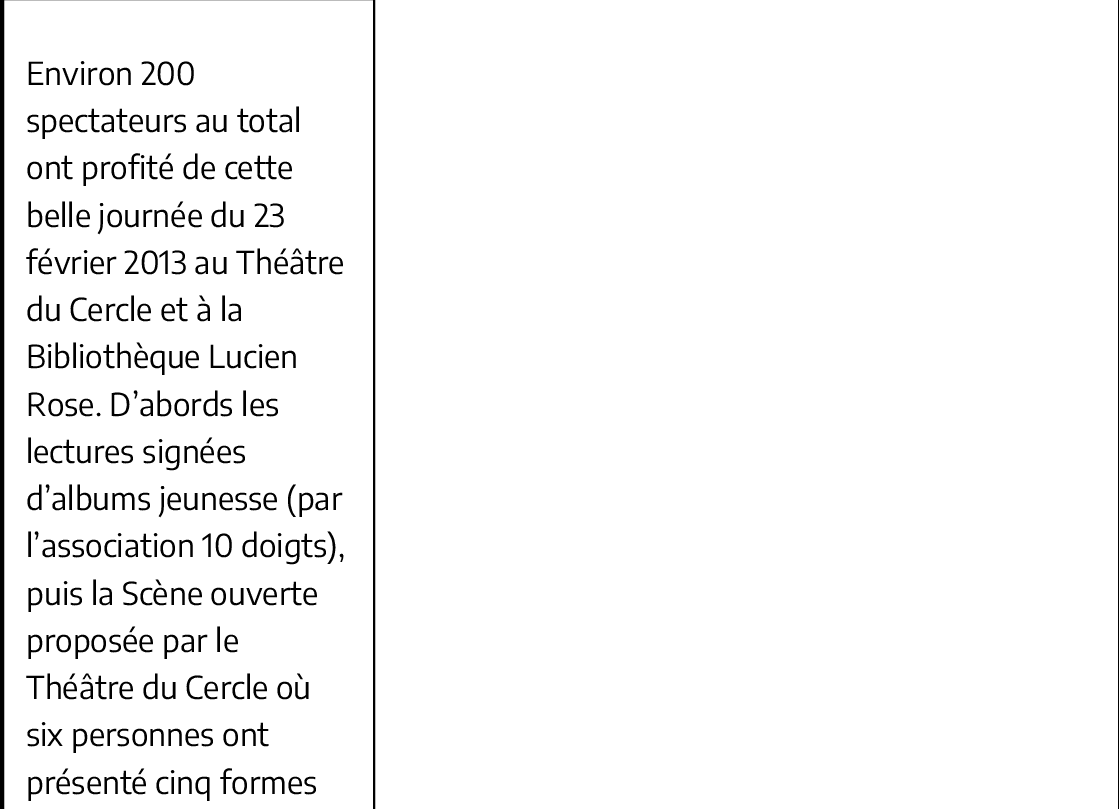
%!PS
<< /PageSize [1119 809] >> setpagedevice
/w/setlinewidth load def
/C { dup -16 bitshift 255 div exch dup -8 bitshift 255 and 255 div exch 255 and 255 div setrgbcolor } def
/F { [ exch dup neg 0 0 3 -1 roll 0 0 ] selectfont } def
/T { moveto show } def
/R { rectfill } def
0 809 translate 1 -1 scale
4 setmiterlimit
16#FFFFFF C
0 0 1119 809 R
16#000000 C
1118 0 1 809 R
0 0 2 809 R
2 w
3 -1 371 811 rectstroke
/EncodeSans-Regular 31.5 F
(Environ 200) 26 85 T
(spectateurs au total) 26 132 T
(ont profité de cette) 26 179 T
(belle journée du 23) 26 227 T
(février 2013 au Théâtre) 26 274 T
(du Cercle et à la) 26 321 T
(Bibliothèque Lucien) 26 368 T
(Rose. D’abords les) 26 416 T
(lectures signées) 26 463 T
(d’albums jeunesse \(par) 26 510 T
(l’association 10 doigts\),) 26 557 T
(puis la Scène ouverte) 26 605 T
(proposée par le) 26 652 T
(Théâtre du Cercle où) 26 699 T
(six personnes ont) 26 746 T
(présenté cinq formes) 26 794 T
showpage
